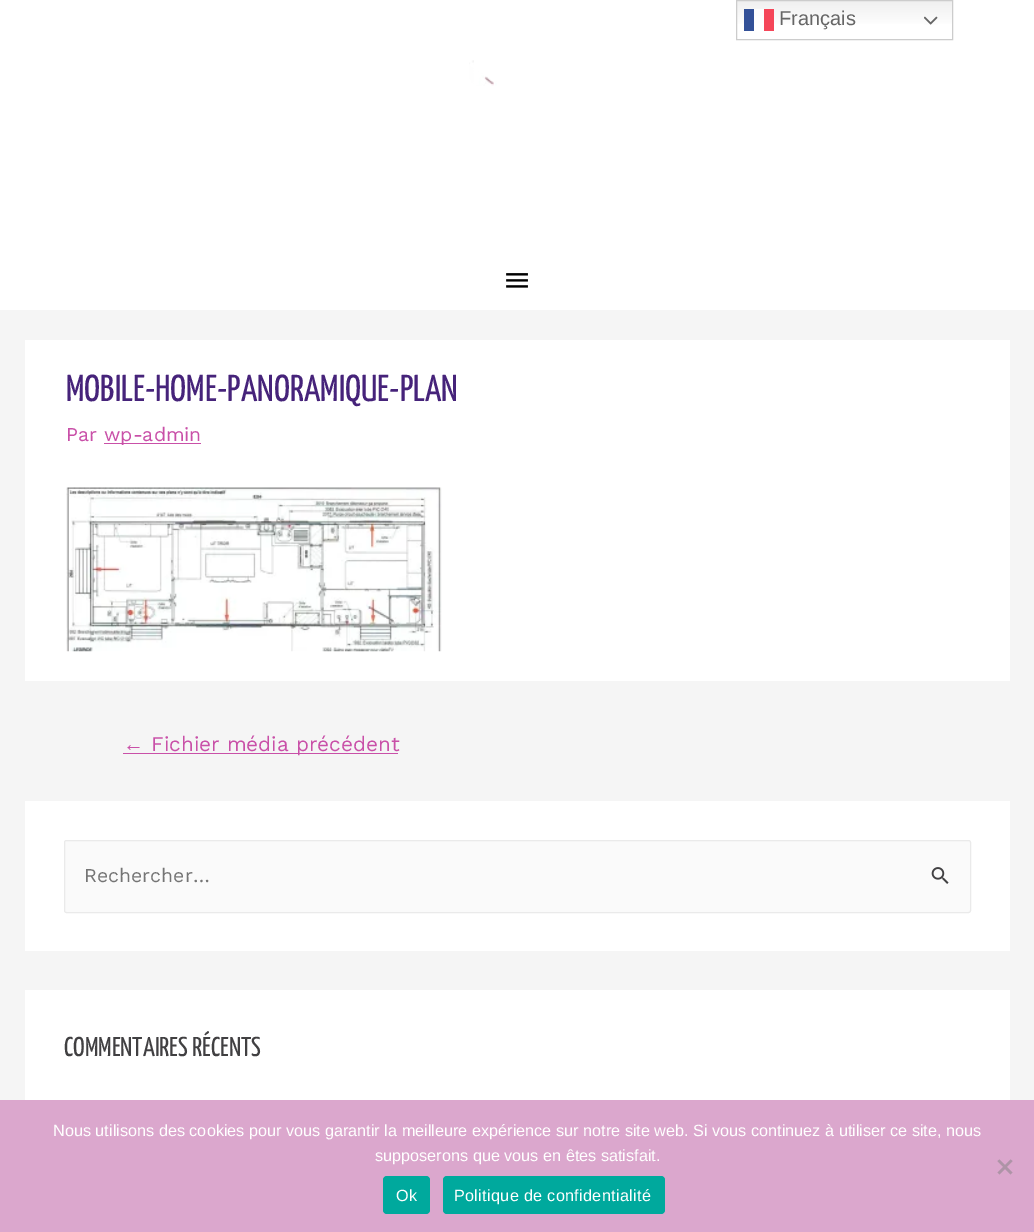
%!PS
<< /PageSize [1034 1232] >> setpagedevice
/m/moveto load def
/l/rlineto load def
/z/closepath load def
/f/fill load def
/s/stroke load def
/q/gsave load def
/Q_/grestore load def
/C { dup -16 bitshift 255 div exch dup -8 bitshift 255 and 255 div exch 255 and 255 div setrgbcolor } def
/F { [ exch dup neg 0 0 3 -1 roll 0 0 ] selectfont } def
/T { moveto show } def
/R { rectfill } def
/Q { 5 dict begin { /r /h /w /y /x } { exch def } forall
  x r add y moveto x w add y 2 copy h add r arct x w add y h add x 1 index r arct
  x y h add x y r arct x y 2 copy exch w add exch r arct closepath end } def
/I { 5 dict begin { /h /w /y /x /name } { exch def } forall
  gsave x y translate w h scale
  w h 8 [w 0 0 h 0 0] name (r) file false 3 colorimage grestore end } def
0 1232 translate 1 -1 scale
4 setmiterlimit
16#F5F5F5 C
0 0 1034 1232 R
16#FFFFFF C
0 0 1034 310 R
q 737 1 m 215 0 l 0 23 l -215 0 l z clip newpath
<< /ShadingType 2 /ColorSpace /DeviceRGB /Coords [844 0 844 40] /Extend [true true] /Function << /FunctionType 3 /Domain [0 1] /Functions [<< /FunctionType 2 /Domain [0 1] /C0 [.937 .937 .937] /C1 [1 1 1] /N 1 >> << /FunctionType 2 /Domain [0 1] /C0 [1 1 1] /C1 [1 1 1] /N 1 >>] /Bounds [.7] /Encode [0 1 0 1] >> >> shfill Q_
q 754 9 m 10 0 l 0 15 l -10 0 l z clip newpath
<< /ShadingType 2 /ColorSpace /DeviceRGB /Coords [844 0 844 40] /Extend [true true] /Function << /FunctionType 3 /Domain [0 1] /Functions [<< /FunctionType 2 /Domain [0 1] /C0 [.988 .988 .988] /C1 [1 1 1] /N 1 >> << /FunctionType 2 /Domain [0 1] /C0 [1 1 1] /C1 [1 1 1] /N 1 >>] /Bounds [.7] /Encode [0 1 0 1] >> >> shfill Q_
16#CCCCCC C
736.5 .5 216 39 rectstroke
16#335198 C
744 9 10 22 R
16#F54659 C
764 9 10 22 R
/LiberationSans-Regular 20 F
16#666666 C
(Français) 779 25 T
(1.rgb) 924 16 14 9 I
(2.rgb) 469 60 28 26 I
(3.rgb) 506 273 22 15 I
16#FFFFFF C
25 340 985 341 R
/YanoneKaffeesatz-ExtraLight 37.5 F
16#46237A C
(MOBILE-HOME-PANORAMIQUE-PLAN) 66 401 T
/WorkSans-Regular 19.5 F
16#C950A8 C
(Par) 66 441 T
104 443 97 1 R
(wp-admin) 104 441 T
(4.rgb) 66 487 376 165 I
/LiberationSans-Regular 20.75 F
(←) 123 751 T
123 753 275 1 R
/WorkSans-Regular 20.75 F
(Fichier média précédent) 151 751 T
16#FFFFFF C
25 801 985 150 R
16#FAFAFA C
64.5 840.5 906 72 2 Q q f Q_
16#EAEAEA C
s
/WorkSans-Regular 19.5 F
16#757575 C
(Rechercher…) 84 882 T
(5.rgb) 931 867 18 17 I
16#FFFFFF C
25 990 985 110 R
/YanoneKaffeesatz-ExtraLight 27.25 F
16#414042 C
(COMMENTAIRES RÉCENTS) 64 1056 T
16#DBA7CD C
0 1100 1034 132 R
/LiberationSans-Regular 16.25 F
16#FFFFFF C
(Nous utilisons des cookies pour vous garantir la meilleure expérience sur notre site web. Si vous continuez à utiliser ce site, nous) 53 1136 T
(supposerons que vous en êtes satisfait.) 375 1161 T
16#AE94A7 C
1010.5 1159.5 m 2 1.5 l -13 13.5 l -2 -2 l z f
997.5 1161 m 2 -1.5 l 13 13 l -2 2 l z f
16#00A99D C
383 1176 47 38 4 Q f
16#FFFFFF C
396 1201 m .3 0 (Ok) ashow
16#00A99D C
443 1176 222 38 4 Q f
16#FFFFFF C
454 1201 m .3 0 (Politique de confidentialité) ashow
showpage
